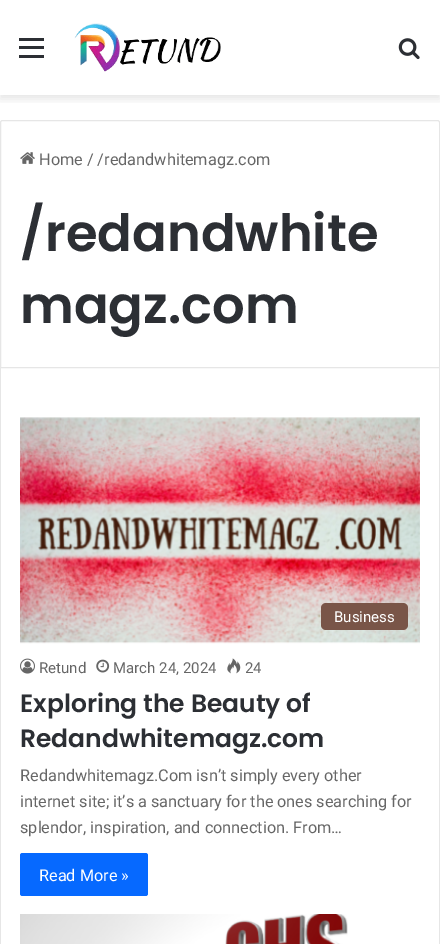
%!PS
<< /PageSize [440 944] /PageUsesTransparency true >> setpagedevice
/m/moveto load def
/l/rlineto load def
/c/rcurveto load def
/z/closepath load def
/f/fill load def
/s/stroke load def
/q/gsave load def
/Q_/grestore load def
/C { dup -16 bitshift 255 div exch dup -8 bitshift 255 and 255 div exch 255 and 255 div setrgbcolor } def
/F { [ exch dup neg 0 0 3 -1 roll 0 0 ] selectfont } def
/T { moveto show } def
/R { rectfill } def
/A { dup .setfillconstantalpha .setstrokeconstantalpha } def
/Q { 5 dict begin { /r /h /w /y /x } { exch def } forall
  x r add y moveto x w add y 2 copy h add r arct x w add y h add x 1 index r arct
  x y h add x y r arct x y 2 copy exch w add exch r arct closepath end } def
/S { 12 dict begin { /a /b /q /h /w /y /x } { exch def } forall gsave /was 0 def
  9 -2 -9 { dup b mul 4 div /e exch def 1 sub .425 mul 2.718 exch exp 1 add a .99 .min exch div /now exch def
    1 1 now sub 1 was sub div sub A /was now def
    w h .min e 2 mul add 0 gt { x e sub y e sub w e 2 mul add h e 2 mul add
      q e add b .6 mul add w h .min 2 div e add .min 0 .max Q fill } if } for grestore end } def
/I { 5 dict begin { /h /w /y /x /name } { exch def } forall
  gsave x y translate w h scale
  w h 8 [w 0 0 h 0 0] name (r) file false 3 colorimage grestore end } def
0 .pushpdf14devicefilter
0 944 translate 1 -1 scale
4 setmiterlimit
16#FFFFFF C
0 0 440 944 R
q
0 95 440 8 rectclip
16#000000 C
0 4 440 95 0 4.5 .1 S
Q_
16#2C2F34 C
19 46 25 3 R
19 38 25 3 R
19 55 25 3 R
(1.rgb) 74 23 147 49 I
(2.rgb) 398 38 22 22 I
16#E6E6E6 C
2.5 120.5 m 435 0 l 1 0 2 1 2 2 c 0 245 l -439 0 l 0 -245 l 0 -1 1 -2 2 -2 c z s
(3.rgb) 20 152 15 12 I
/Roboto-Regular 16.25 F
16#666666 C
(Home / /redandwhitemagz.com) 39 165 T
/Poppins-SemiBold 51.25 F
16#2C2F34 C
(/redandwhite) 20 251 T
(magz.com) 20 323 T
16#E6E6E6 C
439 368 1 576 R
0 368 1 576 R
(4.rgb) 20 417 400 227 I
16#795548 C
321 603 87 27 5 Q f
/Roboto-Regular 15 F
16#FFFFFF C
(Business) 334 622 T
(5.rgb) 20 658 15 16 I
16#666666 C
(Retund) 39 673 T
(6.rgb) 96 659 14 14 I
(March 24, 2024) 113 673 T
(7.rgb) 227 658 14 16 I
(24) 245 673 T
/Poppins-SemiBold 25 F
16#2C2F34 C
(Exploring the Beauty of) 20 712 T
(Redandwhitemagz.com) 20 747 T
/Roboto-Regular 16.25 F
16#666666 C
(Redandwhitemagz.Com isn’t simply every other) 20 781 T
(internet site; it’s a sanctuary for the ones searching for) 20 807 T
(splendor, inspiration, and connection. From…) 20 833 T
16#0669FF C
20 853 128 43 2.5 Q f
16#FFFFFF C
(Read More ») 39 881 T
(8.rgb) 20 914 328 30 I
.poppdf14devicefilter showpage
